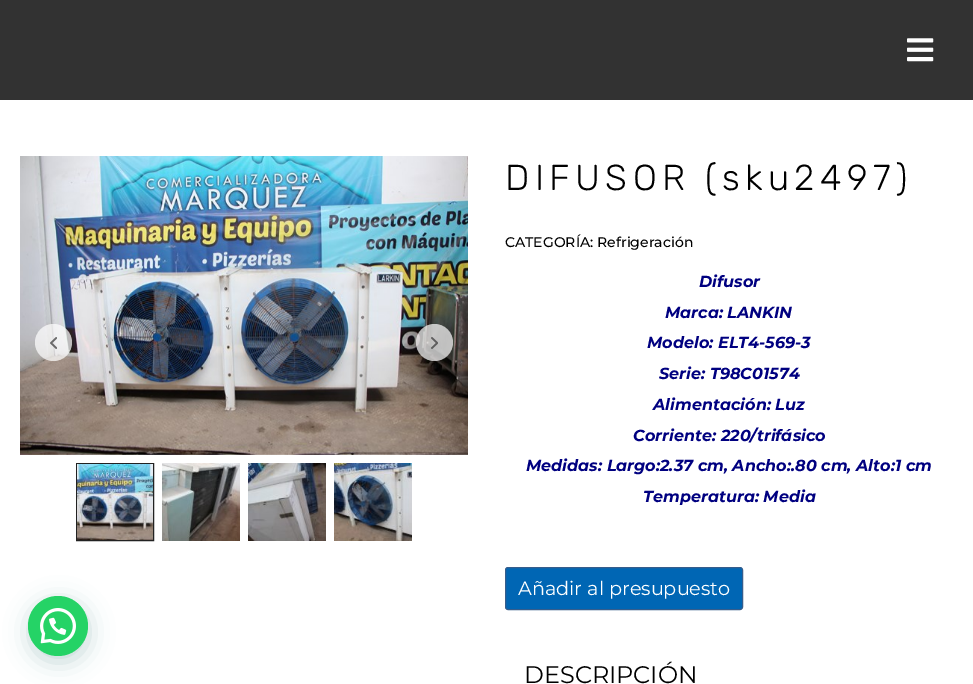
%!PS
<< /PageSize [973 684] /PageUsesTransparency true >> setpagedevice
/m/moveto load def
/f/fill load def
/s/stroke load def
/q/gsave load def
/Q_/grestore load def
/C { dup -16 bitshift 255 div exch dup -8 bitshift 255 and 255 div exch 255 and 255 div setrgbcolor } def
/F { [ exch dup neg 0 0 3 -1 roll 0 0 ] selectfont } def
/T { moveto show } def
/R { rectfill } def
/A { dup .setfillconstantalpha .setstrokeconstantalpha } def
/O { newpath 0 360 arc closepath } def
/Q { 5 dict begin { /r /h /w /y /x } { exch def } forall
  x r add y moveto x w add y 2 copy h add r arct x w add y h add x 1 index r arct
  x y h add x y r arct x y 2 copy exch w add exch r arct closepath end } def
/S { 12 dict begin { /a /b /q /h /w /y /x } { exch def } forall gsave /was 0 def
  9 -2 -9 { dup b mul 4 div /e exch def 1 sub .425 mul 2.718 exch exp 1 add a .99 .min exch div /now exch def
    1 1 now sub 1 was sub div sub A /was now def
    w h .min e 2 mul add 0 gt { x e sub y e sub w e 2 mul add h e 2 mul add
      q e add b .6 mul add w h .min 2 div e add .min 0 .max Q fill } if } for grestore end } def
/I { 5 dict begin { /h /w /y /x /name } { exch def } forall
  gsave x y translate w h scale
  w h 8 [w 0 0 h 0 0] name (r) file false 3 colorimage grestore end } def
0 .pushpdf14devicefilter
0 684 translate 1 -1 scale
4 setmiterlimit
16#FFFFFF C
0 0 973 684 R
16#075E54 C
29 602 60 60 30 12 .24 S
16#25D366 C
58 626 30 O f
(1.rgb) 40 608 36 36 I
16#323232 C
0 0 973 100 R
(2.rgb) 907 38 27 24 I
(3.rgb) 20 156 448 299 I
0.7 A
16#FFFFFF C
53.5 342.5 18.5 O f
1 A
(4.rgb) 50 337 7 12 I
0.7 A
434.5 342.5 18.5 O f
1 A
(5.rgb) 431 337 7 12 I
16#222222 C
76.5 463.5 77 77 rectstroke
(6.rgb) 77 464 76 76 I
(7.rgb) 162 463 78 78 I
(8.rgb) 248 463 78 78 I
(9.rgb) 334 463 78 78 I
/Rubik-Light 36 F
16#000000 C
505 190 m 5.4 0 (DIFUSOR \(sku2497\)) ashow
/Montserrat-Medium 14 F
(CATEGORÍA: Refrigeración) 505 247 T
/Montserrat-BoldItalic 16 F
16#000080 C
(Difusor) 699 287 T
(Marca: LANKIN) 665 318 T
(Modelo: ELT4-569-3) 647 348 T
(Serie: T98C01574) 659 379 T
(Alimentación: Luz) 653 410 T
(Corriente: 220/trifásico) 633 441 T
(Medidas: Largo:2.37 cm, Ancho:.80 cm, Alto:1 cm) 526 471 T
(Temperatura: Media) 643 502 T
16#0066B4 C
505.5 567.5 237 42 2.5 Q q f Q_
16#365D8C C
s
/Montserrat-Regular 19.25 F
16#FFFFFF C
(Añadir al presupuesto) 518 595 T
/Montserrat-Regular 24 F
16#000000 C
(DESCRIPCIÓN) 524 683 T
.poppdf14devicefilter showpage
